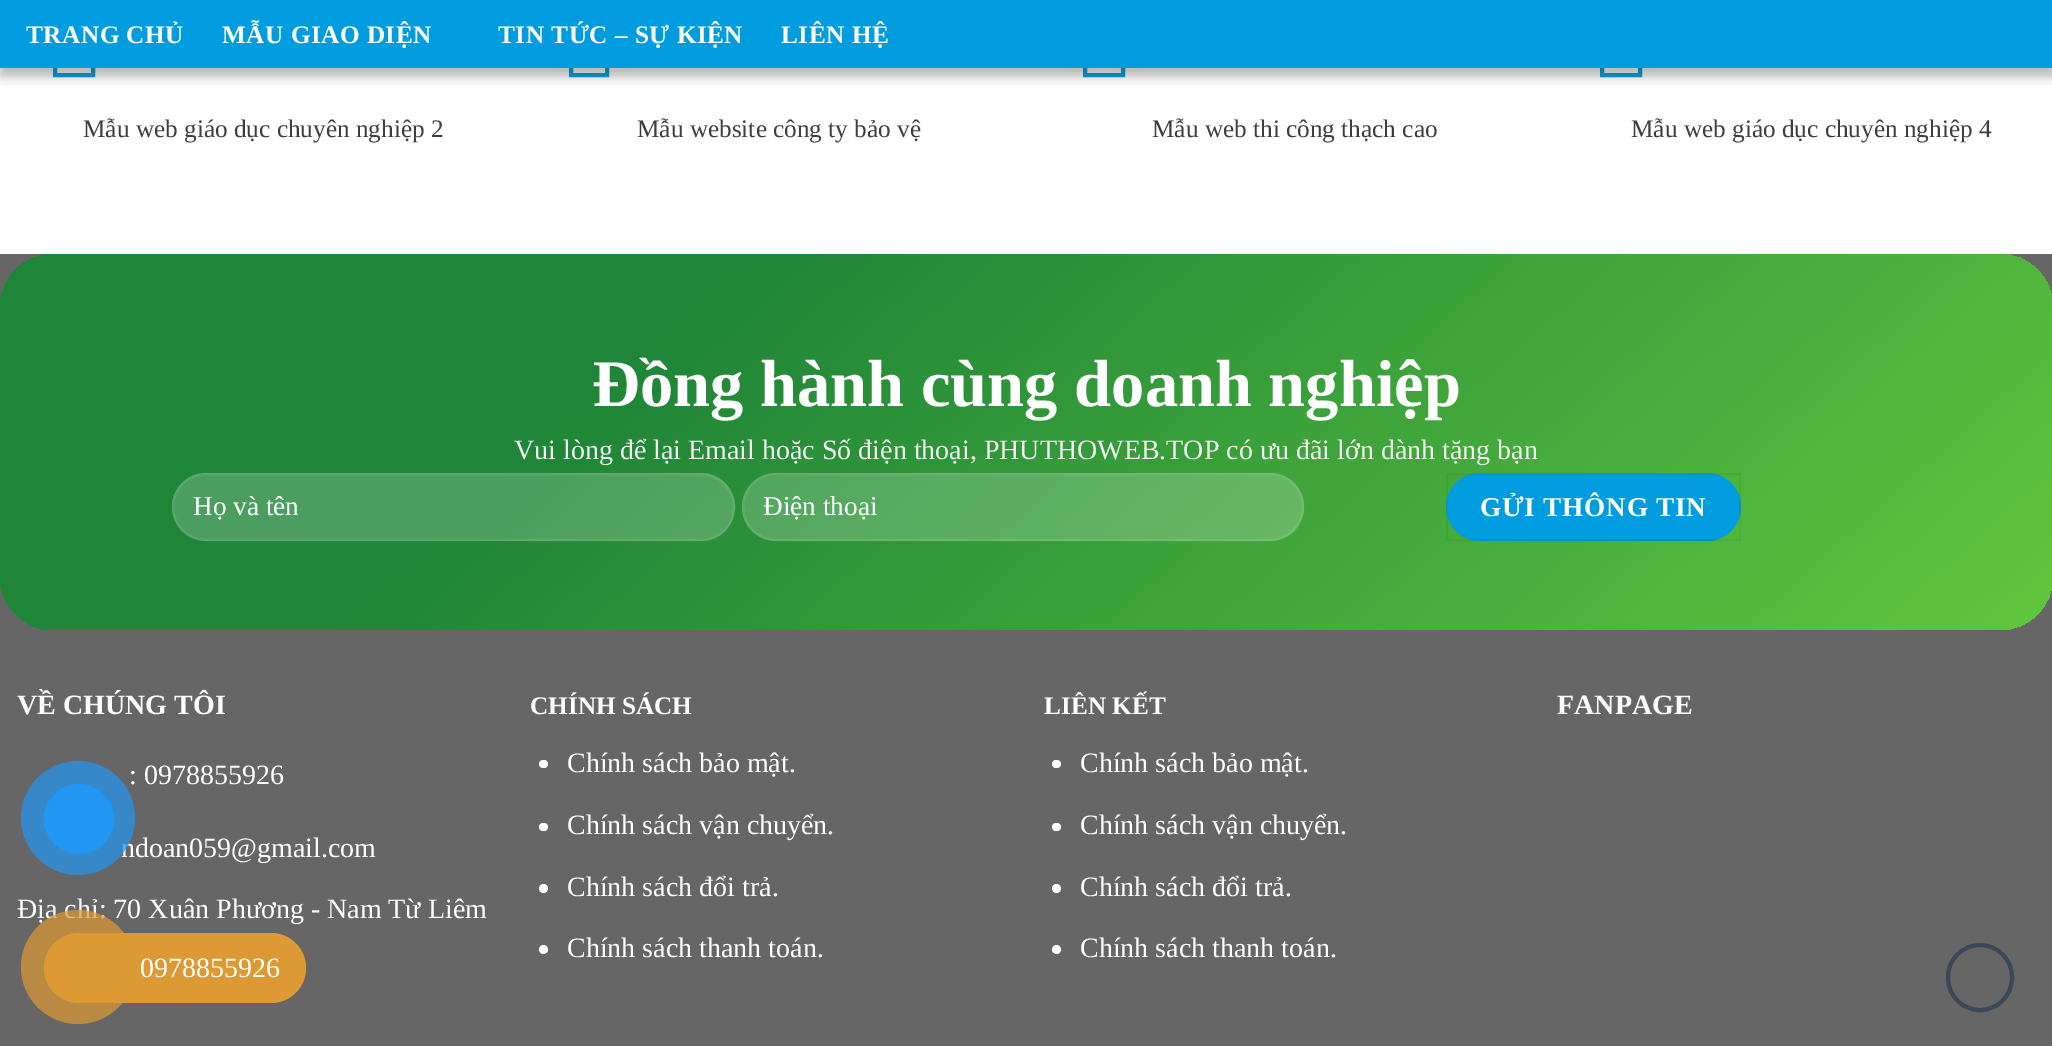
%!PS
<< /PageSize [2052 1046] /PageUsesTransparency true >> setpagedevice
/m/moveto load def
/f/fill load def
/s/stroke load def
/q/gsave load def
/Q_/grestore load def
/w/setlinewidth load def
/C { dup -16 bitshift 255 div exch dup -8 bitshift 255 and 255 div exch 255 and 255 div setrgbcolor } def
/F { [ exch dup neg 0 0 3 -1 roll 0 0 ] selectfont } def
/T { moveto show } def
/R { rectfill } def
/A { dup .setfillconstantalpha .setstrokeconstantalpha } def
/O { newpath 0 360 arc closepath } def
/Q { 5 dict begin { /r /h /w /y /x } { exch def } forall
  x r add y moveto x w add y 2 copy h add r arct x w add y h add x 1 index r arct
  x y h add x y r arct x y 2 copy exch w add exch r arct closepath end } def
/S { 12 dict begin { /a /b /q /h /w /y /x } { exch def } forall gsave /was 0 def
  9 -2 -9 { dup b mul 4 div /e exch def 1 sub .425 mul 2.718 exch exp 1 add a .99 .min exch div /now exch def
    1 1 now sub 1 was sub div sub A /was now def
    w h .min e 2 mul add 0 gt { x e sub y e sub w e 2 mul add h e 2 mul add
      q e add b .6 mul add w h .min 2 div e add .min 0 .max Q fill } if } for grestore end } def
0 .pushpdf14devicefilter
0 1046 translate 1 -1 scale
4 setmiterlimit
16#FFFFFF C
0 0 2052 1046 R
16#0DA1E2 C
4 w
55 37 38 38 rectstroke
571 37 36 38 rectstroke
1085 37 38 38 rectstroke
1602 37 38 38 rectstroke
16#000000 C
2 2 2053 68 0 9 .15 S
0 9 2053 68 0 4.5 .2 S
16#009CE0 C
0 0 2052 68 R
/LiberationSerif-Bold 25.25 F
16#FFFFFF C
26 43 m .5 0 (TRANG CHỦ) ashow
222 43 m .5 0 (MẪU GIAO DIỆN) ashow
498 43 m .5 0 (TIN TỨC – SỰ KIỆN) ashow
781 43 m .5 0 (LIÊN HỆ) ashow
/LiberationSerif-Regular 25.25 F
16#3D3D3D C
(Mẫu web giáo dục chuyên nghiệp 2) 83 137 T
(Mẫu website công ty bảo vệ) 637 137 T
(Mẫu web thi công thạch cao) 1152 137 T
(Mẫu web giáo dục chuyên nghiệp 4) 1631 137 T
16#666666 C
0 254 2052 792 R
q 0 254 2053 376 53 Q clip newpath
<< /ShadingType 2 /ColorSpace /DeviceRGB /Coords [473 -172 1579 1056] /Extend [true true] /Function << /FunctionType 3 /Domain [0 1] /Functions [<< /FunctionType 2 /Domain [0 1] /C0 [.122 .522 .22] /C1 [.122 .522 .22] /N 1 >> << /FunctionType 2 /Domain [0 1] /C0 [.122 .522 .22] /C1 [.38 .78 .247] /N 1 >>] /Bounds [.3] /Encode [0 1 0 1] >> >> shfill Q_
/LiberationSerif-Bold 66.5 F
16#FFFFFF C
(Đồng hành cùng doanh nghiệp) 592 406 T
/LiberationSerif-Regular 28 F
16#F1F1F1 C
(Vui lòng để lại Email hoặc Số điện thoại, PHUTHOWEB.TOP có ưu đãi lớn dành tặng bạn) 514 459 T
0.2 A
16#FFFFFF C
172 473 563 68 34 Q f
0.09 A
2 w
173 474 561 66 33 Q s
/LiberationSerif-Regular 27.25 F
1 A
(Họ và tên) 193 515 T
0.2 A
742 473 562 68 34 Q f
0.09 A
743 474 560 66 33 Q s
1 A
(Điện thoại) 763 515 T
16#009CE0 C
1446 473 295 68 34 Q f
0.05 A
16#000000 C
1447 474 293 66 rectstroke
/LiberationSerif-Bold 27.25 F
1 A
16#FFFFFF C
1480 516 m .75 0 (GỬI THÔNG TIN) ashow
/LiberationSerif-Bold 28 F
(VỀ CHÚNG TÔI) 17 714 T
/LiberationSerif-Regular 28 F
(: 0978855926) 129 784 T
(ndoan059@gmail.com) 121 857 T
(Địa chỉ: 70 Xuân Phương - Nam Từ Liêm) 17 918 T
/LiberationSerif-Bold 25.25 F
(CHÍNH SÁCH) 530 714 T
539 760 9 8 4 Q f
/LiberationSerif-Regular 28 F
(Chính sách bảo mật.) 567 772 T
539 823 9 8 4 Q f
(Chính sách vận chuyển.) 567 834 T
543.5 888.5 4.5 O f
(Chính sách đổi trả.) 567 896 T
543.5 949.5 4.5 O f
(Chính sách thanh toán.) 567 957 T
/LiberationSerif-Bold 25.25 F
(LIÊN KẾT) 1044 714 T
1052 760 9 8 4 Q f
/LiberationSerif-Regular 28 F
(Chính sách bảo mật.) 1080 772 T
1052 823 9 8 4 Q f
(Chính sách vận chuyển.) 1080 834 T
1056.5 888.5 4.5 O f
(Chính sách đổi trả.) 1080 896 T
1056.5 949.5 4.5 O f
(Chính sách thanh toán.) 1080 957 T
/LiberationSerif-Bold 28 F
(FANPAGE) 1557 714 T
16#3A4858 C
4 w
1948 945 64 65 32 Q s
0.7 A
16#2196F3 C
78 818 57 O f
1 A
79 819 35 O f
16#DD9933 C
53 933 253 70 35 Q f
0.7 A
78 967 57 O f
1 A
79 968 35 O f
/LiberationSerif-Regular 28 F
16#FFFFFF C
(0978855926) 140 977 T
.poppdf14devicefilter showpage
